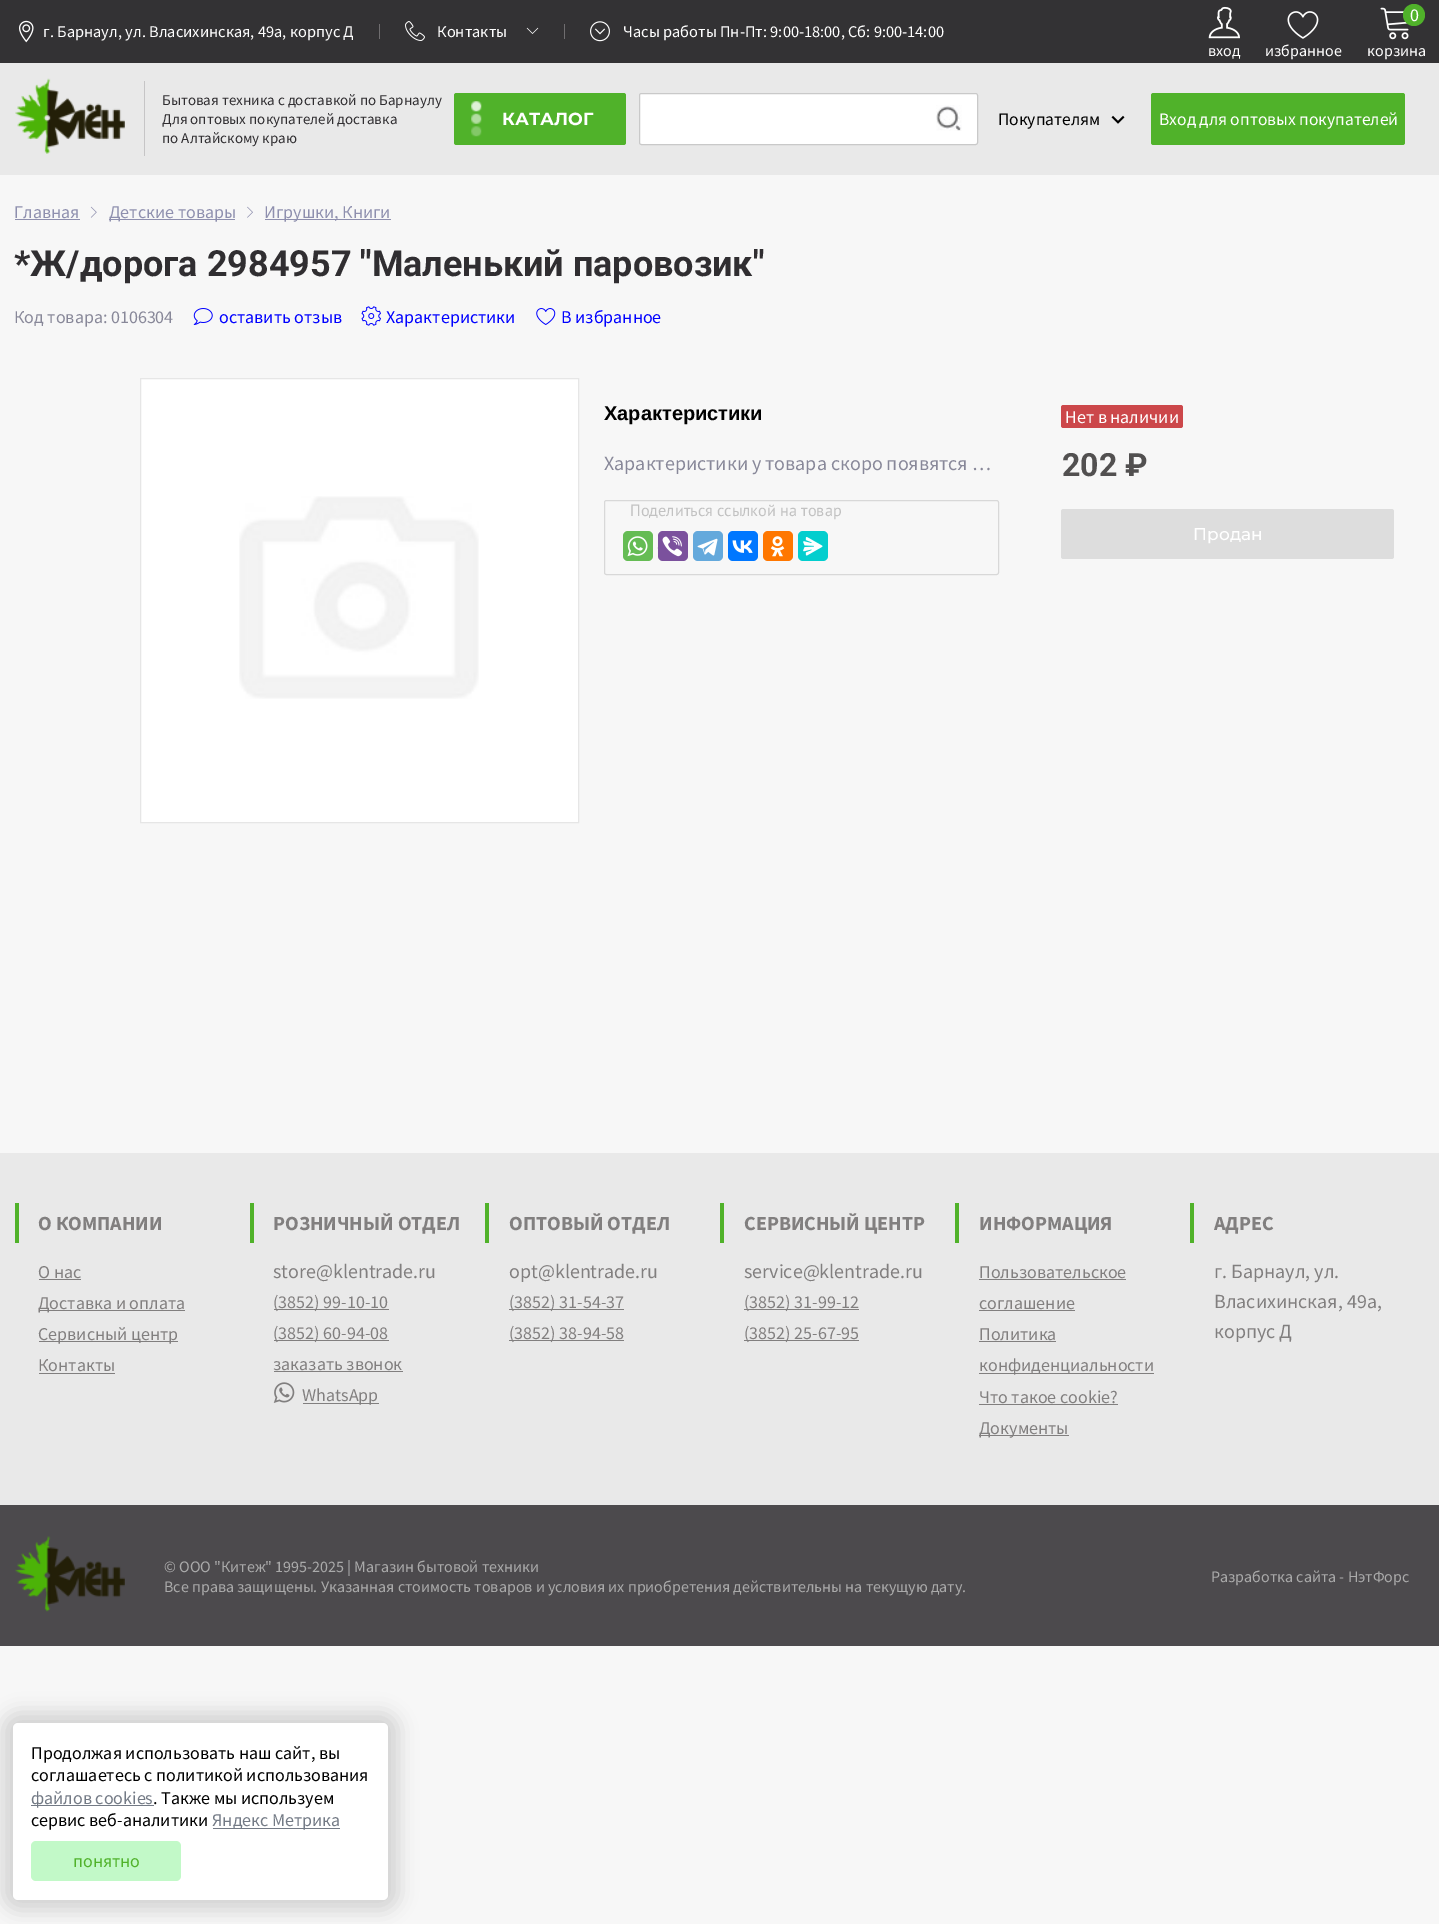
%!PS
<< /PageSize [1439 1924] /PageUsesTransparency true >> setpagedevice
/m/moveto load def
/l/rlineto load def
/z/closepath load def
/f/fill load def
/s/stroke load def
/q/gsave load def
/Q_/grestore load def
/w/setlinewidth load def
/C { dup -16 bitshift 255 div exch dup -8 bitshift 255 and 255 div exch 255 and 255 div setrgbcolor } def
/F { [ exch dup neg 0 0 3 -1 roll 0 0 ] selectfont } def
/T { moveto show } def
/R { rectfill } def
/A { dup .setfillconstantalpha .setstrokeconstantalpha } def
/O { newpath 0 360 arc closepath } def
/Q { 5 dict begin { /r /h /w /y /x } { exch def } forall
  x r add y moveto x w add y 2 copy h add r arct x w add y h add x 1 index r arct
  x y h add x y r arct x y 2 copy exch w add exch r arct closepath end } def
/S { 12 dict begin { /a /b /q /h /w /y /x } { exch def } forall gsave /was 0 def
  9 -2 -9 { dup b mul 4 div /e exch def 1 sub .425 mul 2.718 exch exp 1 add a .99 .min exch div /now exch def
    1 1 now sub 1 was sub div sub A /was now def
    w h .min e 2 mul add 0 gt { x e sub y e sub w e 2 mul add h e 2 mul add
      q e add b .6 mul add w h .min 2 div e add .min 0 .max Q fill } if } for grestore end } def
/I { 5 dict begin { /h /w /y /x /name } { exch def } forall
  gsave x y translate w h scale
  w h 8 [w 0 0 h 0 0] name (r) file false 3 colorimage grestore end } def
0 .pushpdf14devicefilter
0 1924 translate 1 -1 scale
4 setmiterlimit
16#F7F7F7 C
0 0 1439 1924 R
16#333234 C
0 0 1439 63 R
(1.rgb) 19 20 15 23 I
/SourceSansPro-Regular 16.4 F
16#FFFFFF C
(г. Барнаул, ул. Власихинская, 49а, корпус Д) 43 37 T
16#6F6D6F C
379 24 1 15 R
(2.rgb) 405 21 20 20 I
16#FFFFFF C
(Контакты) 437 37 T
(3.rgb) 526 27 13 7 I
16#6F6D6F C
564 24 1 15 R
(4.rgb) 590 21 20 21 I
16#FFFFFF C
(Часы работы Пн-Пт: 9:00-18:00, Сб: 9:00-14:00) 623 37 T
(5.rgb) 1208 6 32 33 I
/SourceSansPro-Regular 16 F
(вход) 1208 56 T
(6.rgb) 1287 11 32 28 I
(избранное) 1265 56 T
(7.rgb) 1380 7 29 33 I
16#50B22A C
1414 15 11 O f
/SourceSansPro-Regular 18 F
16#FFFFFF C
(0) 1410 21 T
/SourceSansPro-Regular 16 F
(корзина) 1367 56 T
16#E9E9E9 C
0 63 1439 112 R
(8.rgb) 15 78 110 76 I
16#C6C5C6 C
144 81 1 75 R
/SourceSansPro-Regular 15 F
16#302E31 C
(Бытовая техника с доставкой по Барнаулу) 162 105 T
(Для оптовых покупателей доставка) 162 124 T
(по Алтайскому краю) 162 143 T
16#50B22A C
454 93 172 52 2.5 Q f
(9.rgb) 471 101 11 36 I
/Montserrat-Bold 17.5 F
16#FFFFFF C
(КАТАЛОГ) 502 125 T
639.5 93.5 338 51 2 Q q f Q_
16#C9C9C9 C
s
(10.rgb) 936 105 26 26 I
/SourceSansPro-Regular 17.5 F
16#000000 C
(Покупателям) 998 125 T
(11.rgb) 1111 115 14 9 I
16#50B22A C
1151 93 254 52 2.5 Q f
16#FFFFFF C
(Вход для оптовых покупателей) 1159 125 T
/SourceSansPro-Regular 18 F
16#8E8FAE C
(Главная) 14 218 T
15 219 65 1 R
(12.rgb) 90 206 7 12 I
109 219 126 1 R
(Детские товары) 109 218 T
(13.rgb) 247 206 6 12 I
265 219 126 1 R
(Игрушки, Книги) 264 218 T
/Roboto-Bold 36 F
16#302E31 C
(*Ж/дорога 2984957 "Маленький паровозик") 14 276 T
/SourceSansPro-Regular 18 F
16#888899 C
(Код товара: 0106304) 14 323 T
(14.rgb) 193 308 20 17 I
16#0000FF C
(оставить отзыв) 219 323 T
(15.rgb) 361 306 20 20 I
(Характеристики) 386 323 T
(16.rgb) 536 308 20 17 I
(В избранное) 561 323 T
16#FFFFFF C
140.5 378.5 m 438 0 l 0 444 l -438 0 l z q f Q_
16#E6E6E6 C
s
(17.rgb) 239 496 240 203 I
/LiberationSans-Bold 20 F
16#000000 C
(Характеристики) 604 420 T
/SourceSansPro-Regular 20 F
16#888899 C
(Характеристики у товара скоро появятся …) 604 470 T
16#D8D8D8 C
604.5 500.5 394 74 2 Q s
/PTSans-Regular 16.25 F
16#C2C2C2 C
(Поделиться ссылкой на товар) 630 516 T
16#65BC54 C
623 531 30 30 5 Q f
(18.rgb) 627 536 21 21 I
16#D6D6D6 C
1.2 w
[1.25 1.25] 0 setdash
657.5 548 m 30 0 l s
16#7B519D C
658 531 30 30 5 Q f
(19.rgb) 662 536 20 21 I
16#64A9DC C
693 531 30 30 5 Q f
(20.rgb) 697 538 21 18 I
16#0077FF C
728 531 30 30 5 Q f
(21.rgb) 732 540 21 13 I
16#FF7700 C
763 531 30 30 5 Q f
(22.rgb) 770 536 15 21 I
16#03CECE C
798 531 30 30 5 Q f
(23.rgb) 803 537 20 19 I
16#CC474A C
1061 405 122 23 2.5 Q f
/SourceSansPro-Regular 18 F
16#FFFFFF C
(Нет в наличии) 1065 423 T
/Roboto-Bold 32 F
16#525050 C
(202 ₽) 1062 476 T
16#DDDDDD C
1061 509 333 50 2.5 Q f
/Montserrat-Medium 17 F
16#FFFFFF C
(Продан) 1193 540 T
16#E9E9E9 C
0 1153 1439 352 R
16#50B22A C
15 1203 4 40 R
/SourceSansPro-Bold 20 F
16#817F7F C
(О КОМПАНИИ) 38 1230 T
/SourceSansPro-Regular 18 F
(О нас) 38 1278 T
39 1279 42 1 R
39 1310 146 1 R
(Доставка и оплата) 38 1309 T
39 1341 139 1 R
(Сервисный центр) 38 1340 T
(Контакты) 38 1371 T
39 1373 76 1 R
16#50B22A C
250 1203 4 40 R
/SourceSansPro-Bold 20 F
16#817F7F C
(РОЗНИЧНЫЙ ОТДЕЛ) 273 1230 T
/SourceSansPro-Regular 20 F
(store@klentrade.ru) 273 1278 T
274 1309 115 1 R
/SourceSansPro-Regular 18 F
(\(3852\) 99-10-10) 273 1308 T
274 1340 115 1 R
(\(3852\) 60-94-08) 273 1339 T
(заказать звонок) 273 1370 T
274 1371 129 1 R
(24.rgb) 273 1382 22 21 I
303 1403 76 1 R
(WhatsApp) 302 1401 T
16#50B22A C
485 1203 4 40 R
/SourceSansPro-Bold 20 F
16#817F7F C
(ОПТОВЫЙ ОТДЕЛ) 509 1230 T
/SourceSansPro-Regular 20 F
(opt@klentrade.ru) 509 1278 T
509 1309 115 1 R
/SourceSansPro-Regular 18 F
(\(3852\) 31-54-37) 509 1308 T
509 1340 115 1 R
(\(3852\) 38-94-58) 509 1339 T
16#50B22A C
720 1203 4 40 R
/SourceSansPro-Bold 20 F
16#817F7F C
(СЕРВИСНЫЙ ЦЕНТР) 744 1230 T
/SourceSansPro-Regular 20 F
(service@klentrade.ru) 744 1278 T
744 1309 115 1 R
/SourceSansPro-Regular 18 F
(\(3852\) 31-99-12) 744 1308 T
744 1340 115 1 R
(\(3852\) 25-67-95) 744 1339 T
16#50B22A C
955 1203 4 40 R
/SourceSansPro-Bold 20 F
16#817F7F C
(ИНФОРМАЦИЯ) 979 1230 T
/SourceSansPro-Regular 18 F
(Пользовательское) 979 1278 T
979 1279 147 1 R
(соглашение) 979 1309 T
979 1310 96 1 R
(Политика) 979 1340 T
979 1341 77 1 R
979 1373 175 1 R
(конфиденциальности) 979 1371 T
(Что такое cookie?) 979 1403 T
979 1404 139 1 R
979 1435 90 1 R
(Документы) 979 1434 T
16#50B22A C
1190 1203 4 40 R
/SourceSansPro-Bold 20 F
16#817F7F C
(АДРЕС) 1214 1230 T
/SourceSansPro-Regular 20 F
(г. Барнаул, ул.) 1214 1278 T
(Власихинская, 49а,) 1214 1308 T
(корпус Д) 1214 1338 T
16#4C4A4D C
0 1505 1439 141 R
(25.rgb) 15 1536 110 76 I
/SourceSansPro-Regular 16 F
16#AAAAAA C
(© ООО "Китеж" 1995-2025 | Магазин бытовой техники) 164 1572 T
(Все права защищены. Указанная стоимость товаров и условия их приобретения действительны на текущую дату.) 164 1592 T
(Разработка сайта - НэтФорс) 1211 1582 T
16#000000 C
3 1713 395 197 15 9.5 .15 S
16#FFFFFF C
13 1723 375 177 5 Q f
/SourceSansPro-Regular 18 F
16#000000 C
(Продолжая использовать наш сайт, вы) 31 1759 T
(соглашаетесь с политикой использования) 31 1781 T
16#737A85 C
31 1805 123 1 R
(файлов cookies) 31 1804 T
16#000000 C
(. Также мы используем) 153 1804 T
(сервис веб-аналитики) 31 1826 T
16#737A85 C
213 1828 127 1 R
(Яндекс Метрика) 212 1826 T
16#C2F9C8 C
31 1841 150 40 5 Q f
16#50B22A C
(понятно) 73 1867 T
.poppdf14devicefilter showpage
